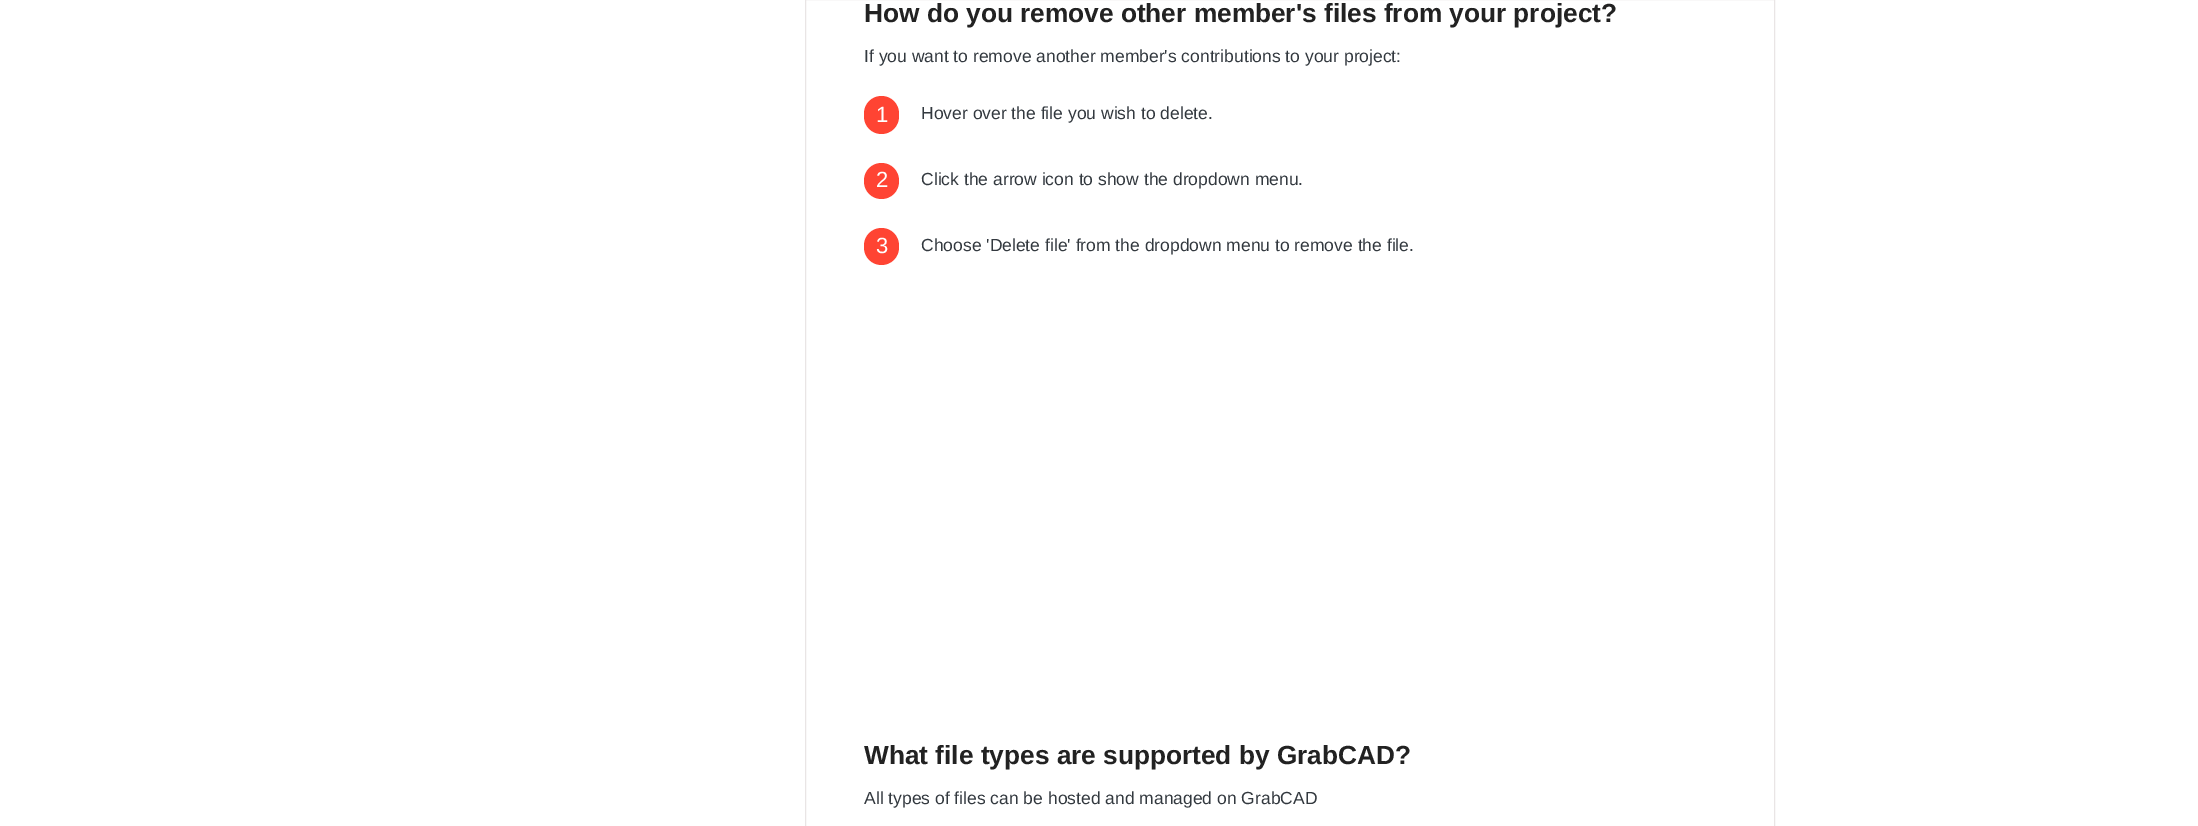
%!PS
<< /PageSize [2198 826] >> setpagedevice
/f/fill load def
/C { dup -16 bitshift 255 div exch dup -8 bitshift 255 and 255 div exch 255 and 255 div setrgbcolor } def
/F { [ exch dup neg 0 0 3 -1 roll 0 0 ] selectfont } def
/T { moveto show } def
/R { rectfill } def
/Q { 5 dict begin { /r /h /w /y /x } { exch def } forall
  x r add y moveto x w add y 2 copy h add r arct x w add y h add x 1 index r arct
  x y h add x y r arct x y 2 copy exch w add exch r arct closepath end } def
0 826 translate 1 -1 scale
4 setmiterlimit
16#FFFFFF C
0 0 2198 826 R
16#E9E5E5 C
805.5 -.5 969 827 rectstroke
/LiberationSans-Bold 26.25 F
16#222222 C
(How do you remove other member's files from your project?) 864 22 T
/LiberationSans-Regular 17.5 F
16#33393F C
(If you want to remove another member's contributions to your project:) 864 62 T
16#FF4433 C
864 96 35 38 17.5 Q f
/LiberationSans-Regular 22 F
16#FFFFFF C
(1) 876 122 T
/LiberationSans-Regular 17.5 F
16#33393F C
(Hover over the file you wish to delete.) 921 119 T
16#FF4433 C
864 163 35 36 17.5 Q f
/LiberationSans-Regular 22 F
16#FFFFFF C
(2) 876 187 T
/LiberationSans-Regular 17.5 F
16#33393F C
(Click the arrow icon to show the dropdown menu.) 921 185 T
16#FF4433 C
864 228 35 37 17.5 Q f
/LiberationSans-Regular 22 F
16#FFFFFF C
(3) 876 253 T
/LiberationSans-Regular 17.5 F
16#33393F C
(Choose 'Delete file' from the dropdown menu to remove the file.) 921 251 T
/LiberationSans-Bold 26.25 F
16#222222 C
(What file types are supported by GrabCAD?) 864 764 T
/LiberationSans-Regular 17.5 F
16#33393F C
(All types of files can be hosted and managed on GrabCAD) 864 804 T
showpage
